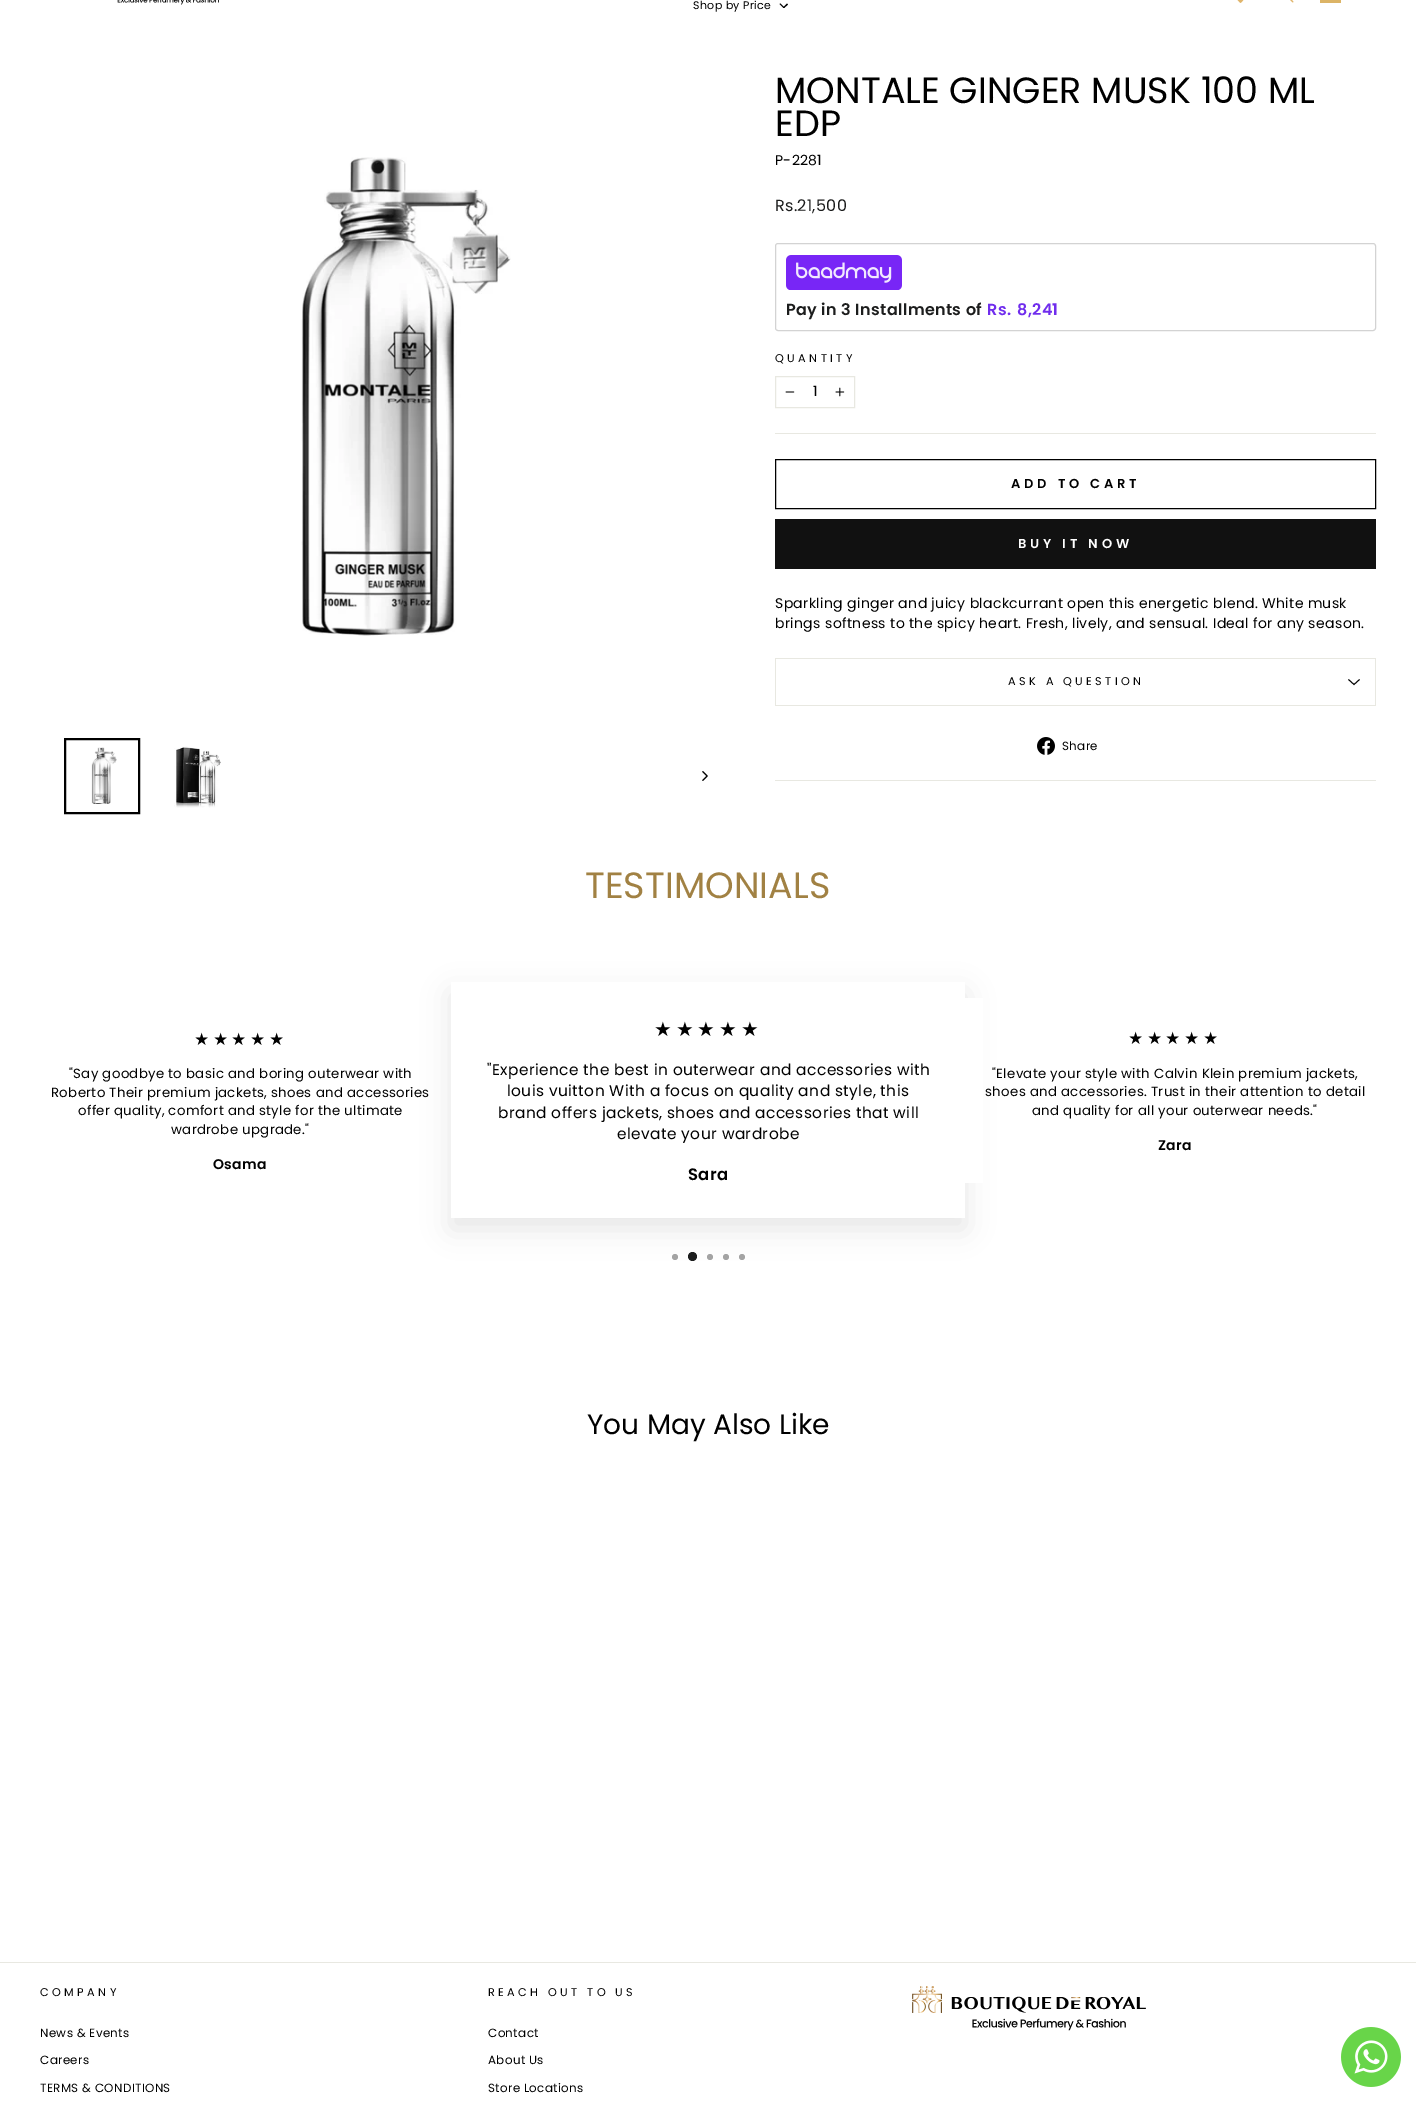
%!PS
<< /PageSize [1416 2102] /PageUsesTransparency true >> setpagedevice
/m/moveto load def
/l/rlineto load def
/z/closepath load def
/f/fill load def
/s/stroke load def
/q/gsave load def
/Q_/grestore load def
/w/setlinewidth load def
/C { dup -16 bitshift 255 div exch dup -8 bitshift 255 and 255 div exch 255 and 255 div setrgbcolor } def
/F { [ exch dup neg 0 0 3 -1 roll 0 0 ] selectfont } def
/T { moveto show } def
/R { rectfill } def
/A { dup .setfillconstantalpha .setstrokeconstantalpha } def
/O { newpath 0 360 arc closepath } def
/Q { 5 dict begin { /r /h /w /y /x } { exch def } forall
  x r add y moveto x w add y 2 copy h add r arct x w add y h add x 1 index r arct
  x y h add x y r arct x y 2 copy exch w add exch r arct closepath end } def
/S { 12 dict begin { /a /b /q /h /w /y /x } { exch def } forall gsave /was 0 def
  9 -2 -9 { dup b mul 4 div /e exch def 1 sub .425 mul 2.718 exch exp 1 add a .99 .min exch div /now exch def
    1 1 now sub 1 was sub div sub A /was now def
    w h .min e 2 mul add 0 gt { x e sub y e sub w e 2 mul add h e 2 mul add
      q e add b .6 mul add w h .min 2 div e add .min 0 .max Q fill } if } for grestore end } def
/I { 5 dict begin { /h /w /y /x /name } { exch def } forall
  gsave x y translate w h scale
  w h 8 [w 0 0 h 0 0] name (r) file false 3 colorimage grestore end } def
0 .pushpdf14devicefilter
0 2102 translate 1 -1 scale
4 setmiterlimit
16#FFFFFF C
0 0 1416 2102 R
(1.rgb) 117 0 102 5 I
/Poppins-Regular 11 F
16#000000 C
693 9 m .35 0 (Shop by Price) ashow
787 3.5 m 1 1 l -4 3.5 l -1 -.5 l z f
780.5 3.5 m 4 4 l -1 .5 l -4 -4 l z f
(2.rgb) 1237 0 7 3 I
(3.rgb) 1290 0 4 3 I
16#DCB466 C
1320 0 21 3 R
(4.rgb) 301 157 210 479 I
(5.rgb) 91 747 26 57 I
16#000000 C
2 w
65 739 74 74 rectstroke
(6.rgb) 174 746 47 62 I
(7.rgb) 702 771 6 10 I
/Poppins-Regular 36.5 F
(MONTALE GINGER MUSK 100 ML) 775 103 T
(EDP) 775 136 T
/Poppins-Regular 14 F
775 165 m .35 0 (P-2281) ashow
/Poppins-Regular 16 F
16#1C1D1D C
775 211 m .35 0 (Rs.21,500) ashow
16#D3D3D3 C
1 w
775.5 243.5 600 87 2.5 Q s
(8.rgb) 786 255 116 35 I
/Poppins-SemiBold 16 F
16#1C1D1D C
786 315 m .35 0 (Pay in 3 Installments of) ashow
16#702DED C
987 315 m .35 0 (Rs.) ashow
1017 315 m .35 0 (8,241) ashow
/Poppins-Regular 11.25 F
16#000000 C
775 362 m 3.4 0 (QUANTITY) ashow
16#E8E8E1 C
775.5 376.5 79 31 rectstroke
(9.rgb) 785 391 10 2 I
/Poppins-Regular 14 F
16#000000 C
813 396 m .35 0 (1) ashow
(10.rgb) 835 387 10 10 I
16#E8E8E1 C
775 433 601 1 R
16#000000 C
775.5 459.5 600 49 rectstroke
/Poppins-SemiBold 13 F
1011 488 m 3.9 0 (ADD TO CART) ashow
16#111111 C
775 519 601 50 R
16#FFFFFF C
1018 548 m 3.9 0 (BUY IT NOW) ashow
/Poppins-Regular 14 F
16#000000 C
775 608 m .35 0 (Sparkling ginger and juicy blackcurrant open this energetic blend. White musk) ashow
775 628 m .35 0 (brings softness to the spicy heart. Fresh, lively, and sensual. Ideal for any season.) ashow
16#E8E8E1 C
775 705 601 1 R
775 658 601 1 R
1375 658 1 47 R
775 658 1 47 R
/Poppins-Regular 11.25 F
16#000000 C
1008 685 m 3.4 0 (ASK A QUESTION) ashow
.9 w
1348.5 679.5 m 5.5 5 l 5.5 -5 l s
(11.rgb) 1037 737 18 18 I
/Poppins-Regular 11.9 F
1062 750 m .35 0 (Share) ashow
16#E8E8E1 C
775 780 601 1 R
/Poppins-Regular 36.5 F
16#A18143 C
(TESTIMONIALS) 585 898 T
/DejaVuSans-Regular 17 F
16#000000 C
194 1045 m 3.5 0 (★★★★★) ashow
/Poppins-Regular 13.3 F
69 1078 m .33 0 ("Say goodbye to basic and boring outerwear with) ashow
51 1097 m .33 0 (Roberto Their premium jackets, shoes and accessories) ashow
78 1115 m .33 0 (offer quality, comfort and style for the ultimate) ashow
171 1134 m .33 0 (wardrobe upgrade.") ashow
/Poppins-SemiBold 14 F
213 1169 m .33 0 (Osama) ashow
q
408 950 m 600 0 l 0 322 l -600 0 l z 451 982 m 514 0 l 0 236 l -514 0 l z eoclip newpath
451 993 514 236 0 14 .1 S
Q_
/DejaVuSans-Regular 19.75 F
654 1036 m 4 0 (★★★★★) ashow
/Poppins-Regular 15.4 F
487 1075 m .4 0 ("Experience the best in outerwear and accessories with) ashow
507 1096 m .4 0 (louis vuitton With a focus on quality and style, this) ashow
498 1118 m .4 0 (brand offers jackets, shoes and accessories that will) ashow
617 1139 m .4 0 (elevate your wardrobe) ashow
/Poppins-SemiBold 16.5 F
688 1180 m .4 0 (Sara) ashow
16#FFFFFF C
965 998 18 185 R
/DejaVuSans-Regular 17 F
16#000000 C
1128 1044 m 3.5 0 (★★★★★) ashow
/Poppins-Regular 13.3 F
992 1078 m .33 0 ("Elevate your style with Calvin Klein premium jackets,) ashow
985 1096 m .33 0 (shoes and accessories. Trust in their attention to detail) ashow
1032 1115 m .33 0 (and quality for all your outerwear needs.") ashow
/Poppins-SemiBold 14 F
1158 1150 m .33 0 (Zara) ashow
16#A4A4A4 C
675 1257 3 O f
16#1C1D1D C
692.5 1256.5 4.5 O f
16#A4A4A4 C
710 1257 3 O f
726 1257 3 O f
742 1257 3 O f
/Poppins-Regular 28 F
16#000000 C
(You May Also Like) 587 1434 T
16#E8E8E1 C
0 1962 1416 1 R
/Poppins-Regular 11.25 F
16#000000 C
40 1996 m 3.4 0 (COMPANY) ashow
/Poppins-Regular 11.9 F
40 2037 m .35 0 (News & Events) ashow
40 2064 m .35 0 (Careers) ashow
40 2092 m .35 0 (TERMS & CONDITIONS) ashow
/Poppins-Regular 11.25 F
488 1996 m 3.4 0 (REACH OUT TO US) ashow
/Poppins-Regular 11.9 F
488 2037 m .35 0 (Contact) ashow
488 2064 m .35 0 (About Us) ashow
488 2092 m .35 0 (Store Locations) ashow
(12.rgb) 912 1986 234 45 I
(13.rgb) 1341 2027 60 60 I
.poppdf14devicefilter showpage
